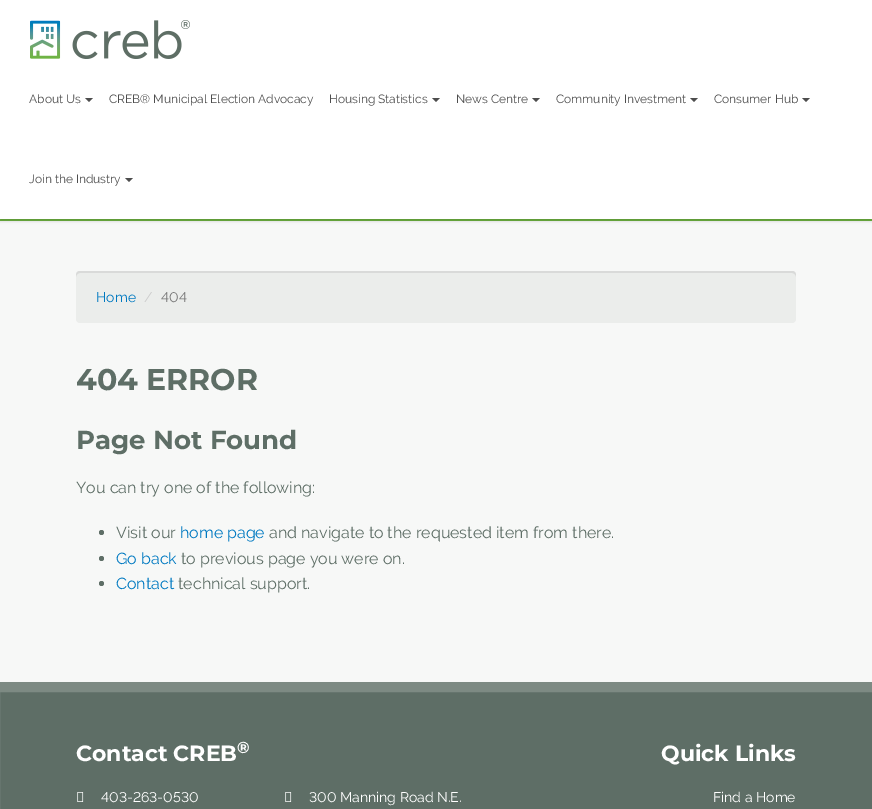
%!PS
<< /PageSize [872 809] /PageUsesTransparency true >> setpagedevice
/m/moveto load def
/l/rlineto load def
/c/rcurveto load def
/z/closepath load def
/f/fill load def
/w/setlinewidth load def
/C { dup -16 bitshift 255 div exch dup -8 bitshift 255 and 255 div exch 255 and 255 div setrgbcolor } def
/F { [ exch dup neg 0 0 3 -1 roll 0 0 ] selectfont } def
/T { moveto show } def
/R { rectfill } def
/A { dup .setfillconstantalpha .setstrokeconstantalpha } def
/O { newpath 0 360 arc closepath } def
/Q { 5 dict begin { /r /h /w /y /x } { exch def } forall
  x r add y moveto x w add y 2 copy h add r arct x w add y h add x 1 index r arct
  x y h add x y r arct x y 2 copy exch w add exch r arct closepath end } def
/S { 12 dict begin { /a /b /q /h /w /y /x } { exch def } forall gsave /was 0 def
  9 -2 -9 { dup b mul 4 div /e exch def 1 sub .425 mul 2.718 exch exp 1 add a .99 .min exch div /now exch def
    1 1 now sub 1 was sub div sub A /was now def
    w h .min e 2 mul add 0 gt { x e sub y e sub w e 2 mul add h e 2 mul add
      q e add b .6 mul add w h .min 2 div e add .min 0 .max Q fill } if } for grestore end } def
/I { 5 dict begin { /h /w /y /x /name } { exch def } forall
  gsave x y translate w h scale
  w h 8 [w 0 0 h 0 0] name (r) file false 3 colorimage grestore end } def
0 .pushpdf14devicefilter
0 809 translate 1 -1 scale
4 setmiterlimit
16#F7F8F7 C
0 0 872 809 R
16#6CB33F C
0 219 872 2 R
16#000000 C
0 2 872 219 0 1.5 .15 S
16#FFFFFF C
0 0 872 219 R
(1.rgb) 30 20 160 39 I
/Raleway-Regular 12 F
16#4D4D4D C
(About Us) 29 103 T
85 98 m 8 0 l -4 4 l z f
(CREB® Municipal Election Advocacy) 109 103 T
(Housing Statistics) 329 103 T
432 98 m 8 0 l -4 4 l z f
(News Centre) 456 103 T
532 98 m 8 0 l -4 4 l z f
(Community Investment) 556 103 T
690 98 m 8 0 l -4 4 l z f
(Consumer Hub) 714 103 T
802 98 m 8 0 l -4 4 l z f
(Join the Industry) 29 183 T
125 178 m 8 0 l -4 4 l z f
16#EBEDEB C
76 271 720 52 4 Q f
0.08 A
16#000000 C
80 273 m 712 0 l 2 0 4 2 4 4 c 0 -3 0 -6 -4 -6 c -712 0 l -4 0 -4 3 -4 6 c 0 -2 2 -4 4 -4 c z f
/Raleway-Regular 14 F
1 A
16#0079C1 C
(Home) 96 302 T
16#CCCCCC C
(/) 144 302 T
16#777777 C
(404) 161 302 T
/Montserrat-Thin 30 F
16#5E6E66 C
(404 ERROR) 76 390 T
/Montserrat-Thin 26 F
(Page Not Found) 76 449 T
/Raleway-Regular 16 F
(You can try one of the following:) 76 493 T
101.5 532.5 2.5 O f
(Visit our) 116 538 T
16#0079C1 C
(home page) 180 538 T
16#5E6E66 C
(and navigate to the requested item from there.) 269 538 T
101.5 558.5 2.5 O f
16#0079C1 C
(Go back) 116 564 T
16#5E6E66 C
(to previous page you were on.) 181 564 T
101.5 583.5 2.5 O f
16#0079C1 C
(Contact) 116 589 T
16#5E6E66 C
(technical support.) 178 589 T
0 692 872 117 R
16#7D8A83 C
10 w
-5 687 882 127 rectstroke
/Montserrat-Thin 22 F
16#FFFFFF C
(Contact CREB) 76 761 T
/Montserrat-Thin 16 F
(®) 237 753 T
(2.rgb) 77 792 7 10 I
/Raleway-Regular 14 F
(403-263-0530) 101 802 T
(2.rgb) 285 792 7 10 I
(300 Manning Road N.E.) 309 802 T
/Montserrat-Thin 22 F
(Quick Links) 661 761 T
/Raleway-Regular 14 F
(Find a Home) 713 802 T
.poppdf14devicefilter showpage
